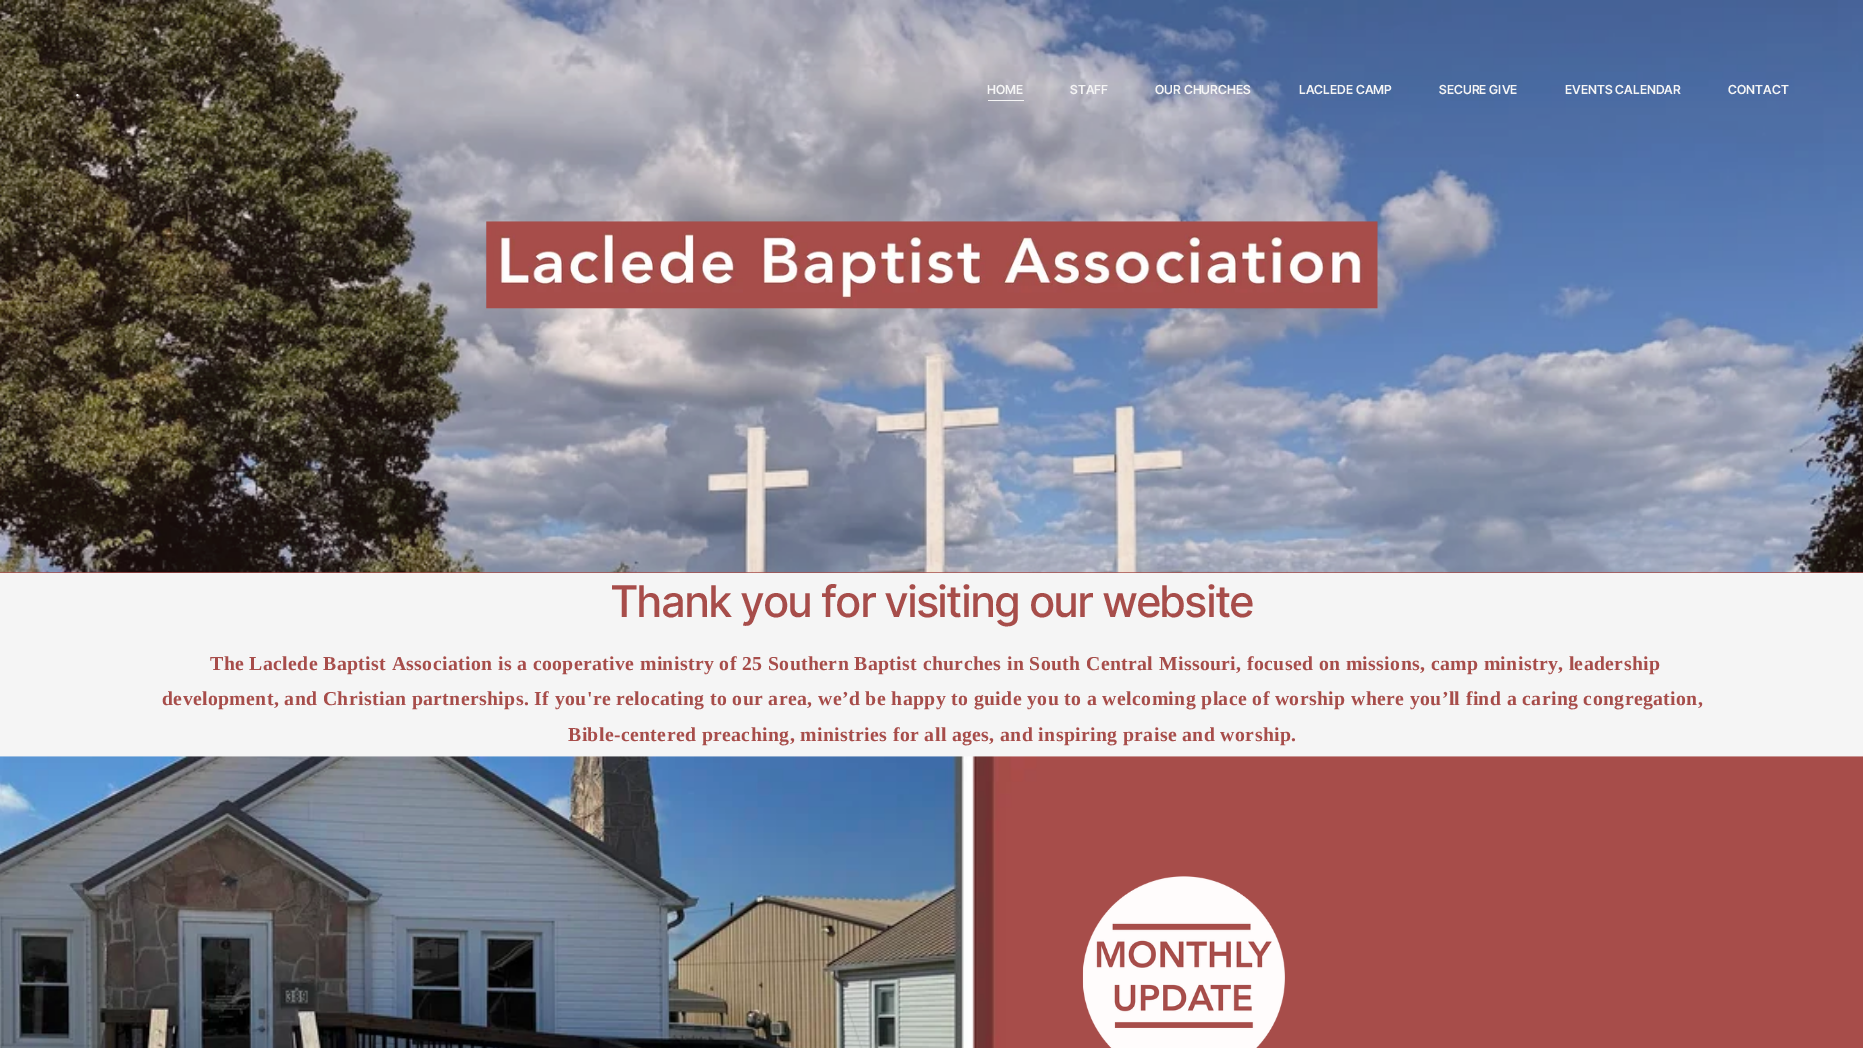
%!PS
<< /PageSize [1863 1048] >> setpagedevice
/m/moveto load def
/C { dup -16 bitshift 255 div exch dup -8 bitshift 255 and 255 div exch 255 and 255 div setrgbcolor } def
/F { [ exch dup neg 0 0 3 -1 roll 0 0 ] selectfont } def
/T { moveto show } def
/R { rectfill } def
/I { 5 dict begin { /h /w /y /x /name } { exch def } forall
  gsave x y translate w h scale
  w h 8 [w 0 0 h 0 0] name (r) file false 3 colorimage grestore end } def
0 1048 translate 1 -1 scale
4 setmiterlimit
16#F5F5F5 C
0 0 1863 1048 R
16#A74D4A C
0 572 1863 1 R
(1.rgb) 0 0 1863 573 I
/LiberationSerif-Regular 19.75 F
16#F5F5F5 C
(.) 75 96 T
988 100 36 1 R
/InterTight-SemiBold 12.5 F
987 94 m .1 0 (HOME) ashow
1070 94 m .1 0 (STAFF) ashow
1155 94 m .1 0 (OUR CHURCHES) ashow
1299 94 m .1 0 (LACLEDE CAMP) ashow
1439 94 m .1 0 (SECURE GIVE) ashow
1565 94 m .1 0 (EVENTS CALENDAR) ashow
1728 94 m .1 0 (CONTACT) ashow
(2.rgb) 486 221 892 88 I
/InterTight-Medium 43.5 F
16#A74D4A C
(Thank you for visiting our website) 611 617 T
/LiberationSerif-Bold 19.75 F
210 670 m .39 0 (The Laclede Baptist Association is a cooperative ministry of 25 Southern Baptist churches in South Central Missouri, focused on missions, camp ministry, leadership) ashow
162 705 m .39 0 (development, and Christian partnerships. If you're relocating to our area, we’d be happy to guide you to a welcoming place of worship where you’ll find a caring congregation,) ashow
568 741 m .39 0 (Bible-centered preaching, ministries for all ages, and inspiring praise and worship.) ashow
(3.rgb) 0 756 1863 292 I
(4.rgb) 1082 876 203 172 I
showpage
